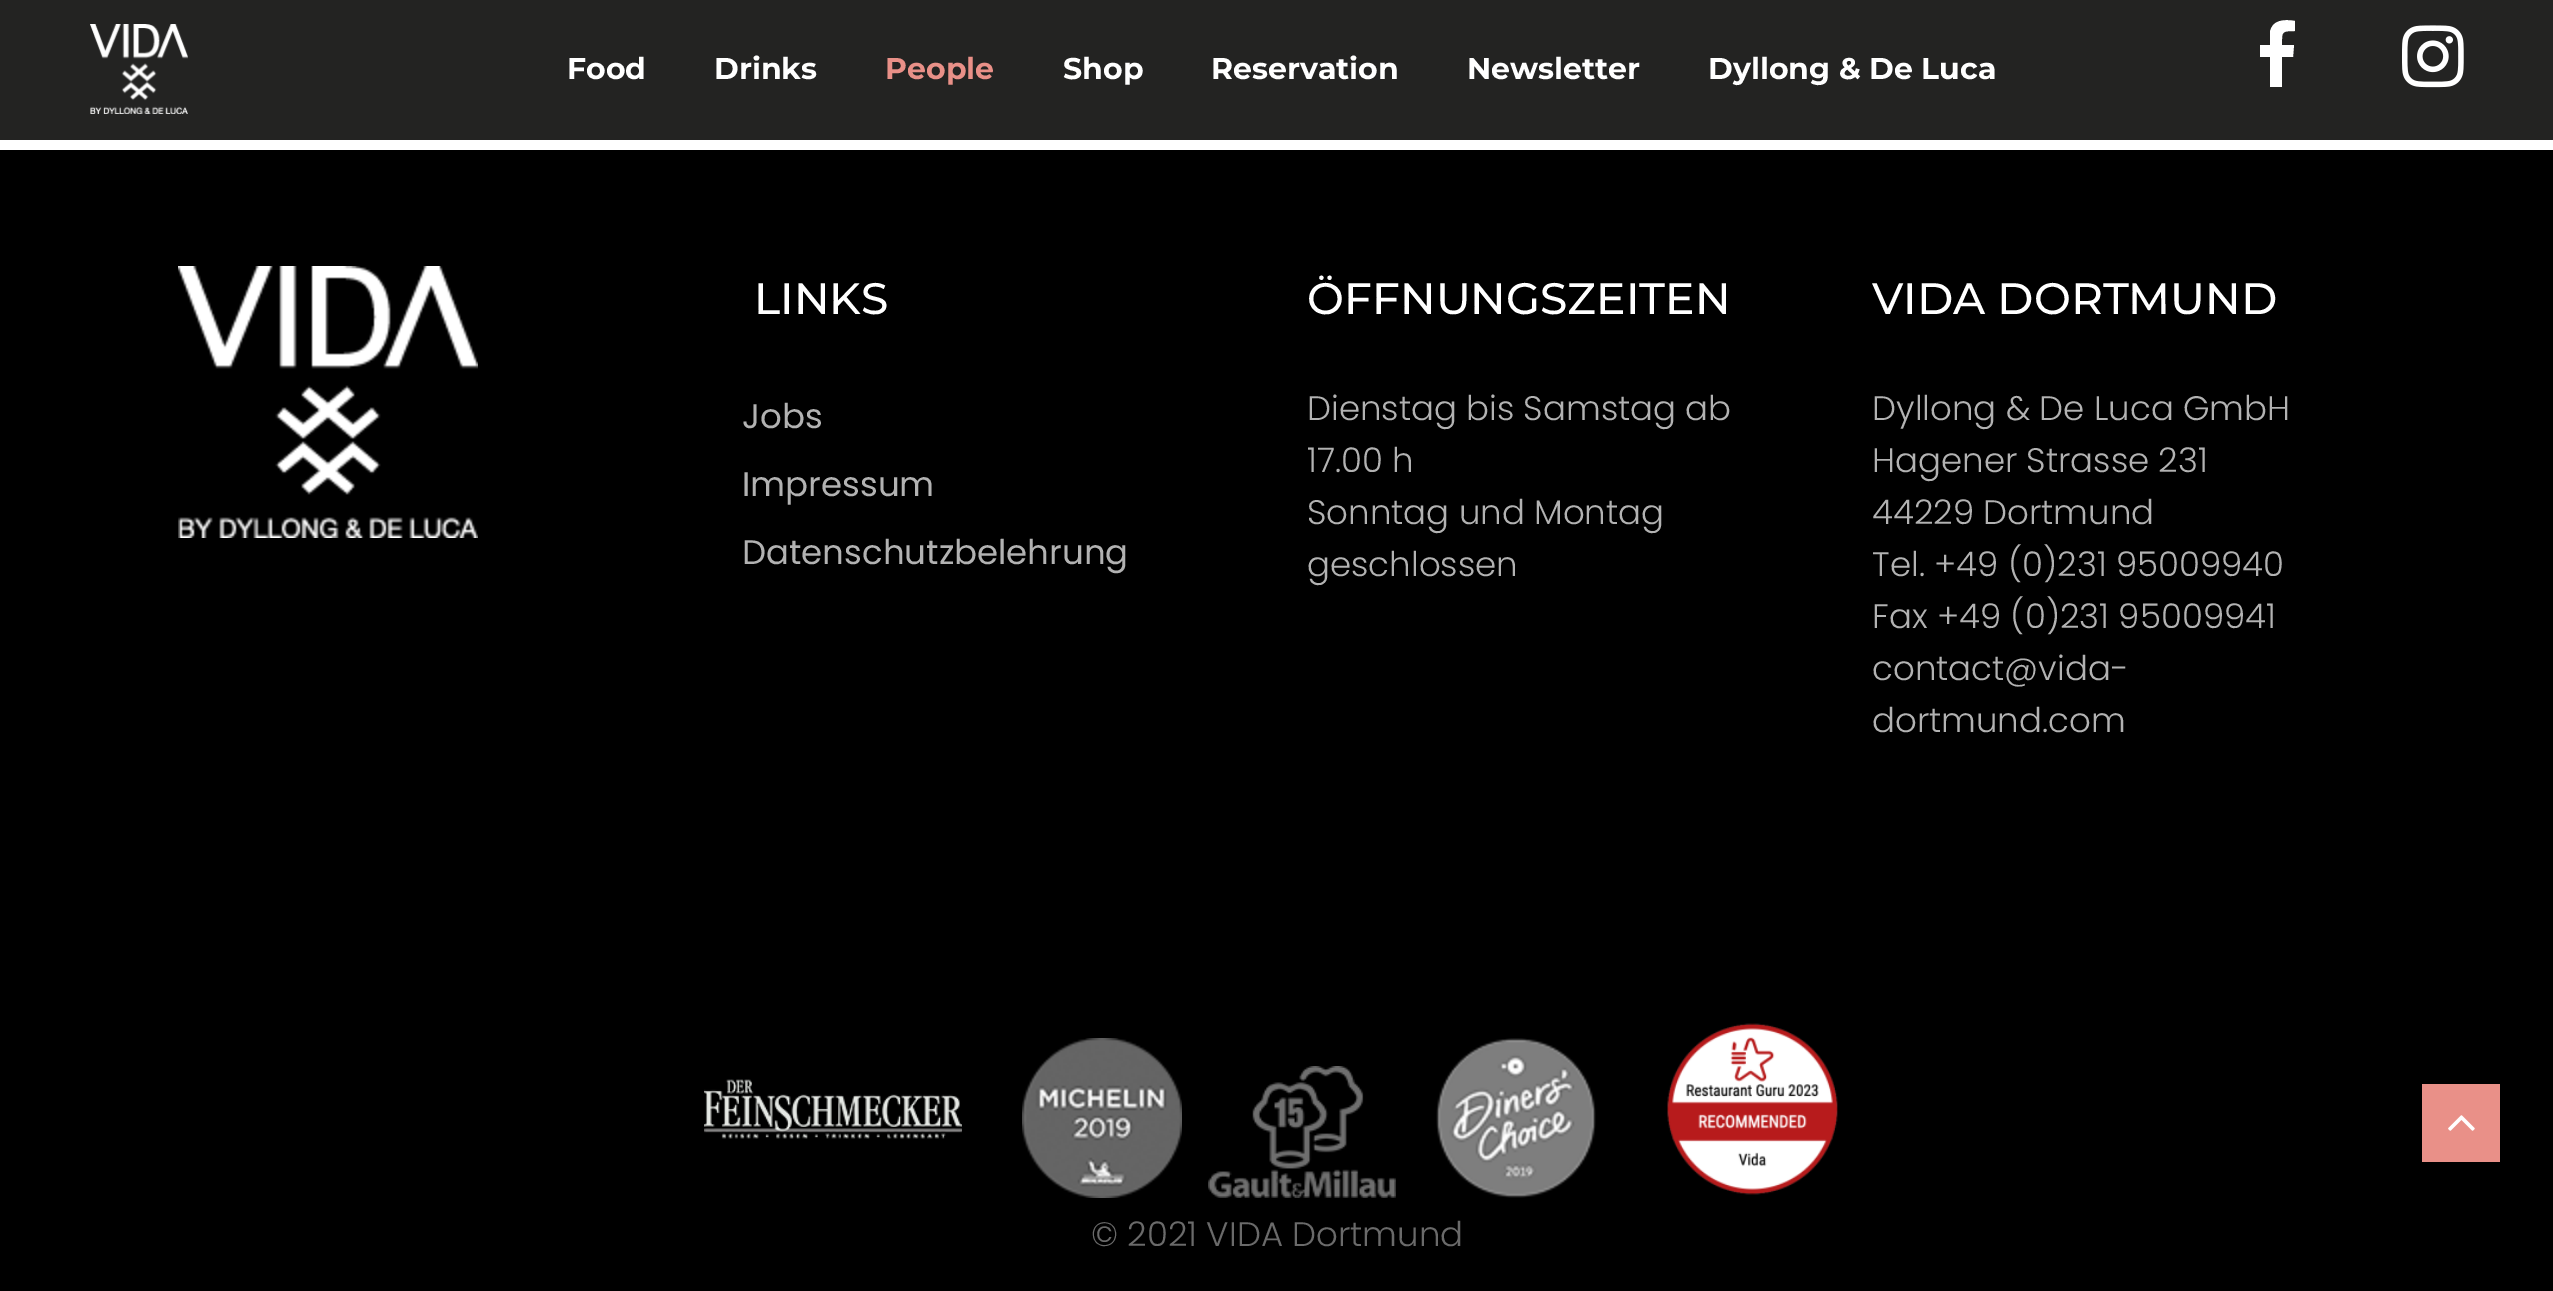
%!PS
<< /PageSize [2553 1291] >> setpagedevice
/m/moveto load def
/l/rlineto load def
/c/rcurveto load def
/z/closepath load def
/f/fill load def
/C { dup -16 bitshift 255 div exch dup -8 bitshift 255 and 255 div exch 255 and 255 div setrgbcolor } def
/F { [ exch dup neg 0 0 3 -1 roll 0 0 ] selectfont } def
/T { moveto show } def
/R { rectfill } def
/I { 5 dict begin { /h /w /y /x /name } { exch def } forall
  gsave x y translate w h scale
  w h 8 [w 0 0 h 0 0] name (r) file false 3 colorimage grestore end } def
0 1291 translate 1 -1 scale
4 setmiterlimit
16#FFFFFF C
0 0 2553 1291 R
16#232322 C
0 0 2553 140 R
(1.rgb) 90 24 98 90 I
/Montserrat-Bold 30 F
16#FFFFFF C
(Food) 567 79 T
(Drinks) 714 79 T
16#E99088 C
(People) 885 79 T
16#FFFFFF C
(Shop) 1063 79 T
(Reservation) 1211 79 T
(Newsletter) 1467 79 T
(Dyllong & De Luca) 1708 79 T
2295 21 m -11 -2 -23 -1 -25 11 c 0 13 l -10 0 l 0 12 l 10 0 l 0 30 l 12 0 l 0 -30 l 11 0 l 1 -12 l -12 0 l 0 -13 -1 -14 13 -14 c z f
(2.rgb) 2402 25 62 63 I
16#000000 C
0 150 2553 1141 R
(3.rgb) 178 266 300 272 I
/Montserrat-Medium 44 F
16#FFFFFF C
(LINKS) 754 314 T
/Poppins-Regular 34 F
16#B2B2B2 C
(Jobs) 742 428 T
(Impressum) 742 496 T
(Datenschutzbelehrung) 742 564 T
/Montserrat-Medium 44 F
16#FFFFFF C
(ÖFFNUNGSZEITEN) 1307 314 T
/Poppins-Light 34 F
16#B2B2B2 C
(Dienstag bis Samstag ab) 1307 420 T
(17.00 h) 1307 472 T
(Sonntag und Montag) 1307 524 T
(geschlossen) 1307 576 T
/Montserrat-Medium 44 F
16#FFFFFF C
(VIDA DORTMUND) 1872 314 T
/Poppins-Light 34 F
16#B2B2B2 C
(Dyllong & De Luca GmbH) 1872 420 T
(Hagener Strasse 231) 1872 472 T
(44229 Dortmund) 1872 524 T
(Tel. +49 \(0\)231 95009940) 1872 576 T
(Fax +49 \(0\)231 95009941) 1872 628 T
(contact@vida-) 1872 680 T
(dortmund.com) 1872 732 T
(4.rgb) 704 1079 258 60 I
(5.rgb) 1022 1038 160 160 I
(6.rgb) 1208 1066 188 132 I
(7.rgb) 1436 1038 160 160 I
(8.rgb) 1667 1023 171 172 I
16#6A6A6A C
(© 2021 VIDA Dortmund) 1091 1246 T
16#E99088 C
2422 1084 78 78 R
(9.rgb) 2448 1115 27 16 I
showpage
